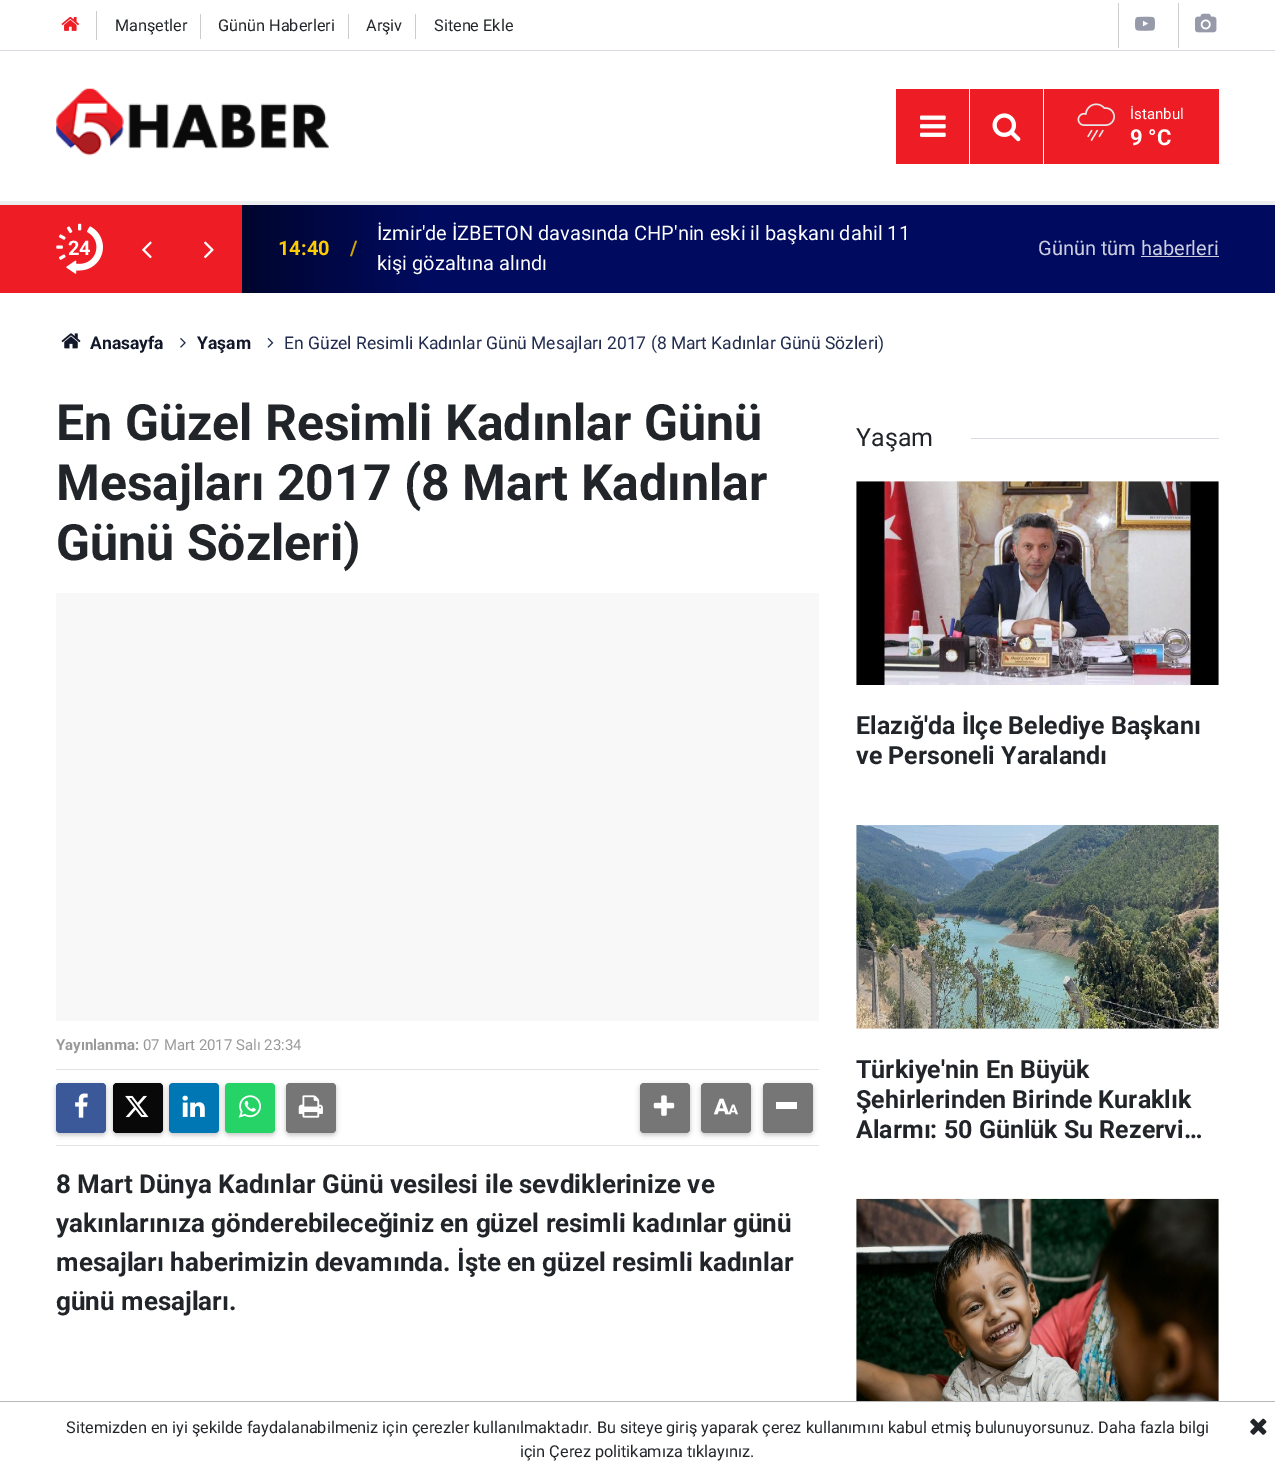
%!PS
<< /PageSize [1275 1476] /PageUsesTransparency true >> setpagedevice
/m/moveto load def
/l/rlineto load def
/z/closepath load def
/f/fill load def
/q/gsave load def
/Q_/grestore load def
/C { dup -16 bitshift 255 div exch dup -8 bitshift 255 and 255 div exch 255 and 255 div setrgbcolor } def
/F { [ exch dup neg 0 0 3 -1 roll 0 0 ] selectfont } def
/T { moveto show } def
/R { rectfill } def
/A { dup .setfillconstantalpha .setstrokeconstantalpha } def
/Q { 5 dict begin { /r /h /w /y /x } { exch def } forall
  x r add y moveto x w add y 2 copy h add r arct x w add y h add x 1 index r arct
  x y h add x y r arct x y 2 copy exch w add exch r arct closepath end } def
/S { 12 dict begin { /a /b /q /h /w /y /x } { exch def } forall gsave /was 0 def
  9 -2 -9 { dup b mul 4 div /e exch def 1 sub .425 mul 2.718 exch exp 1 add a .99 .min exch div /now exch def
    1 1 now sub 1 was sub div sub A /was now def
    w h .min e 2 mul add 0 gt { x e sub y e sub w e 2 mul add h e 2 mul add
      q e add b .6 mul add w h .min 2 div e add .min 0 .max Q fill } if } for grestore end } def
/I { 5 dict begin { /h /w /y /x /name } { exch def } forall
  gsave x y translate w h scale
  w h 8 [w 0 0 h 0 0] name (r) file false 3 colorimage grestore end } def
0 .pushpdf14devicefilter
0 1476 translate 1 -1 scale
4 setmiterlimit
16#FFFFFF C
0 0 1275 1476 R
16#CCCCCC C
96 11 1 29 R
(1.rgb) 61 16 18 15 I
200 14 1 25 R
/Roboto-Regular 16.25 F
16#212529 C
(Manşetler) 115 31 T
16#CCCCCC C
348 14 1 25 R
16#212529 C
(Günün Haberleri) 218 31 T
16#CCCCCC C
415 14 1 25 R
16#212529 C
(Arşiv) 366 31 T
(Sitene Ekle) 434 31 T
16#CCCCCC C
1118 3 1 45 R
(2.rgb) 1135 16 20 15 I
1178 3 1 45 R
(3.rgb) 1195 13 22 20 I
16#D7DAE1 C
0 50 1275 1 R
16#ECEDEE C
0 201 1275 4 R
(4.rgb) 56 88 273 68 I
16#EE1C24 C
896 89 73 75 R
(5.rgb) 920 115 26 22 I
970 89 73 75 R
(6.rgb) 992 113 29 29 I
1044 89 175 75 R
(7.rgb) 1077 103 38 38 I
/Roboto-Regular 15 F
16#FFFFFF C
(İstanbul) 1130 119 T
/Roboto-Bold 22 F
(9 °C) 1130 145 T
16#EE1C24 C
0 205 56 88 R
16#000B60 C
1219 205 56 88 R
q 56 205 m 1163 0 l 0 88 l -1163 0 l z clip newpath
<< /ShadingType 2 /ColorSpace /DeviceRGB /Coords [56 249 1219 249] /Extend [true true] /Function << /FunctionType 3 /Domain [0 1] /Functions [<< /FunctionType 2 /Domain [0 1] /C0 [.933 .11 .141] /C1 [.933 .11 .141] /N 1 >> << /FunctionType 2 /Domain [0 1] /C0 [.933 .11 .141] /C1 [.933 .11 .141] /N 1 >> << /FunctionType 2 /Domain [0 1] /C0 [0 .02 .176] /C1 [0 .043 .376] /N 1 >> << /FunctionType 2 /Domain [0 1] /C0 [0 .043 .376] /C1 [0 .043 .376] /N 1 >>] /Bounds [.05 .16 .32] /Encode [0 1 0 1 0 1 0 1] >> >> shfill Q_
(8.rgb) 56 223 47 51 I
/Roboto-Bold 20 F
16#FFFFFF C
(24) 68 255 T
(9.rgb) 142 241 10 18 I
(10.rgb) 204 241 10 18 I
16#FFCB05 C
(14:40) 278 255 T
16#D1A600 C
(/) 350 255 T
/Roboto-Regular 20 F
16#FFFFFF C
(İzmir'de İZBETON davasında CHP'nin eski il başkanı dahil 11) 377 240 T
(kişi gözaltına alındı) 377 270 T
16#CCCEDF C
(Günün tüm haberleri) 1038 255 T
1141 256 78 1 R
(11.rgb) 61 333 20 16 I
/Roboto-Bold 17.5 F
16#12182A C
(Anasayfa) 90 349 T
(12.rgb) 180 338 6 10 I
(Yaşam) 197 349 T
(13.rgb) 267 338 7 10 I
/Roboto-Regular 17.5 F
16#212C4E C
(En Güzel Resimli Kadınlar Günü Mesajları 2017 \(8 Mart Kadınlar Günü Sözleri\)) 284 349 T
/Roboto-Bold 50 F
16#212529 C
(En Güzel Resimli Kadınlar Günü) 56 440 T
(Mesajları 2017 \(8 Mart Kadınlar) 56 500 T
(Günü Sözleri\)) 56 560 T
16#F8F8F8 C
56 593 763 428 R
/Roboto-Bold 15 F
16#999999 C
(Yayınlanma:) 56 1050 T
/Roboto-Regular 15 F
(07 Mart 2017 Salı 23:34) 143 1050 T
16#E3E3E3 C
56 1069 763 1 R
56 1145 763 1 R
16#323232 C
56 1085 50 50 4 2.5 .3 S
16#3B5999 C
56 1083 50 50 4 Q f
(14.rgb) 75 1093 13 25 I
16#323232 C
113 1085 50 50 4 2.5 .3 S
16#080808 C
113 1083 50 50 4 Q f
(15.rgb) 125 1095 24 23 I
16#323232 C
169 1085 50 50 4 2.5 .3 S
16#0077B5 C
169 1083 50 50 4 Q f
(16.rgb) 182 1095 23 22 I
16#323232 C
225 1085 50 50 4 2.5 .3 S
16#25D366 C
225 1083 50 50 4 Q f
(17.rgb) 238 1095 23 23 I
16#323232 C
286 1085 50 50 4 2.5 .3 S
16#767676 C
286 1083 50 50 4 Q f
(18.rgb) 298 1095 25 23 I
16#323232 C
640 1085 50 50 4 2.5 .3 S
16#767676 C
640 1083 50 50 4 Q f
(19.rgb) 653 1095 22 21 I
16#323232 C
701 1085 50 50 4 2.5 .3 S
16#767676 C
701 1083 50 50 4 Q f
(20.rgb) 713 1098 25 17 I
16#323232 C
763 1085 50 50 4 2.5 .3 S
16#767676 C
763 1083 50 50 4 Q f
16#FFFFFF C
776 1102 21 7 R
/Roboto-Bold 26 F
16#212529 C
(8 Mart Dünya Kadınlar Günü vesilesi ile sevdiklerinize ve) 56 1193 T
(yakınlarınıza gönderebileceğiniz en güzel resimli kadınlar günü) 56 1232 T
(mesajları haberimizin devamında. İşte en güzel resimli kadınlar) 56 1271 T
(günü mesajları.) 56 1310 T
/Roboto-Regular 25 F
(Yaşam) 856 446 T
16#D9DBE2 C
971 438 248 1 R
16#F8F8F8 C
856 481 363 204 R
(21.rgb) 856 481 363 204 I
/Roboto-Bold 25 F
16#212529 C
(Elazığ'da İlçe Belediye Başkanı) 856 734 T
(ve Personeli Yaralandı) 856 764 T
16#F8F8F8 C
856 825 363 204 R
(22.rgb) 856 825 363 204 I
16#212529 C
(Türkiye'nin En Büyük) 856 1078 T
(Şehirlerinden Birinde Kuraklık) 856 1108 T
(Alarmı: 50 Günlük Su Rezervi…) 856 1138 T
16#F8F8F8 C
856 1199 363 204 R
(23.rgb) 856 1198 363 205 I
0.95 A
16#FFFFFF C
856 1402 363 1 R
1 A
16#B9B9B9 C
0 1401 1275 1 R
/Roboto-Regular 16.25 F
16#212529 C
(Sitemizden en iyi şekilde faydalanabilmeniz için çerezler kullanılmaktadır. Bu siteye giriş yaparak çerez kullanımını kabul etmiş bulunuyorsunuz. Daha fazla bilgi) 66 1433 T
(için Çerez politikamıza tıklayınız.) 520 1457 T
(24.rgb) 1250 1418 17 17 I
.poppdf14devicefilter showpage
